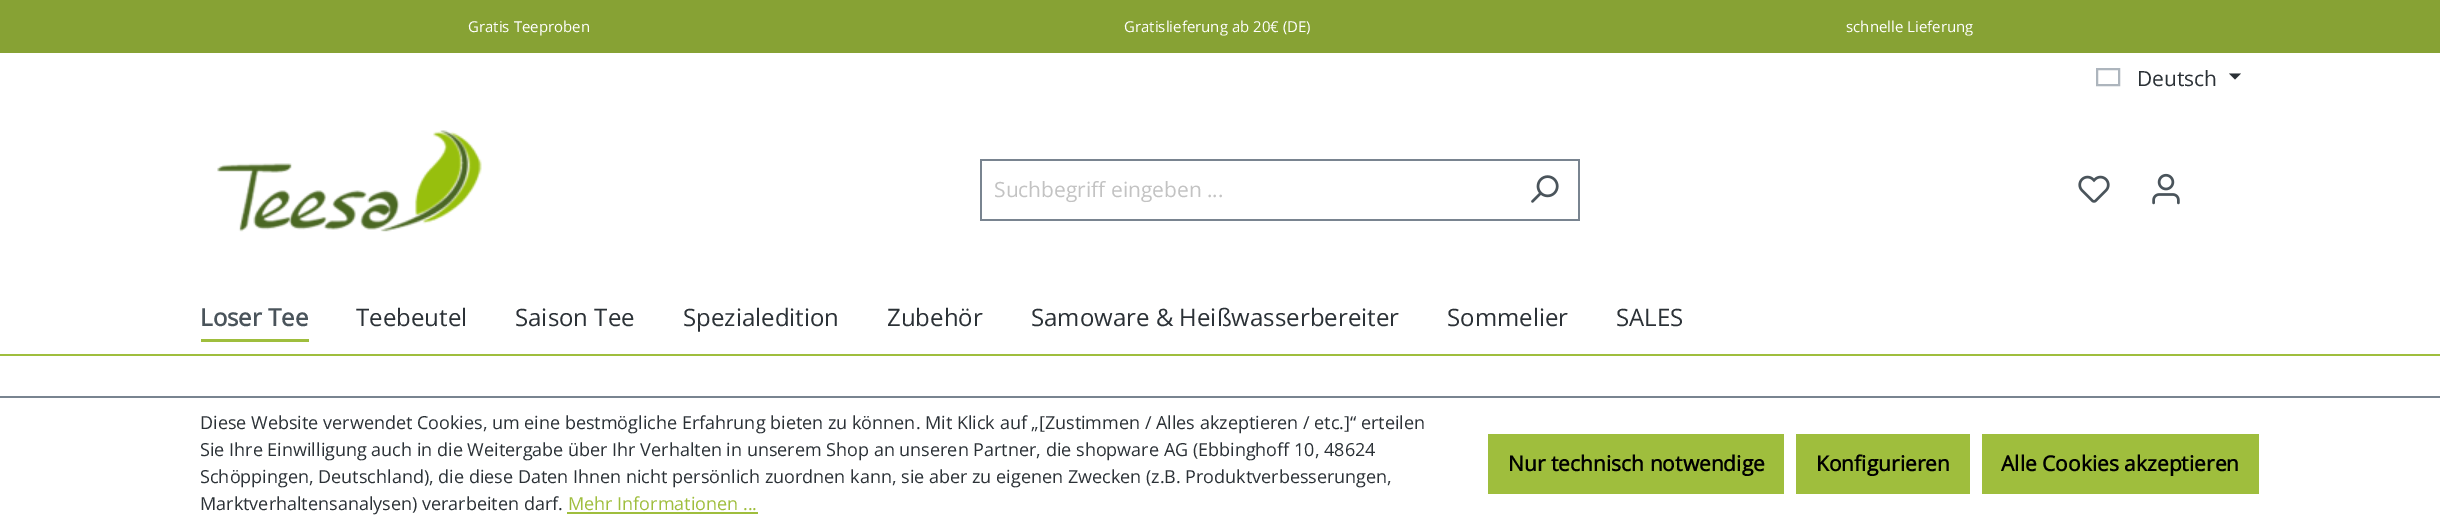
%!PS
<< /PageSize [2440 529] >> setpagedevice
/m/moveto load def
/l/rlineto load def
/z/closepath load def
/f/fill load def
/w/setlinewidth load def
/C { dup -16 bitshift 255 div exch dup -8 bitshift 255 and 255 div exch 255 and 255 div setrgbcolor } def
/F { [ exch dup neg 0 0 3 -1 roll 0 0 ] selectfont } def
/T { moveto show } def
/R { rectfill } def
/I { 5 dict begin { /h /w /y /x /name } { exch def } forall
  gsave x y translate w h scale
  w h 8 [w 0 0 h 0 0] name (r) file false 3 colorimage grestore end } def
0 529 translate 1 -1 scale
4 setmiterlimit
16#FFFFFF C
0 0 2440 529 R
16#9FBE3D C
0 354 2440 2 R
16#87A234 C
0 0 2440 53 R
/OpenSans-Regular 15 F
16#FFFFFF C
(Gratis Teeproben) 468 32 T
(Gratislieferung ab 20€ \(DE\)) 1124 32 T
(schnelle Lieferung) 1846 32 T
16#ADB5BD C
2 w
2097 69 22 16 rectstroke
/OpenSans-Regular 21 F
16#2B3136 C
(Deutsch) 2137 86 T
2229 73.5 m 12 0 l -6 6 l z f
(1.rgb) 217 130 265 102 I
16#798490 C
980 159 600 2 R
980 219 531 2 R
980 159 2 62 R
16#C3C3C3 C
(Suchbegriff eingeben ...) 994 197 T
16#798490 C
1578 159 2 62 R
1509 219 71 2 R
(2.rgb) 1531 175 28 28 I
(3.rgb) 2078 175 32 28 I
(4.rgb) 2152 173 28 32 I
16#9FBE3D C
201 339 108 3 R
/OpenSans-Bold 24 F
16#4A545B C
(Loser Tee) 200 326 T
/OpenSans-Regular 24 F
16#2B3136 C
(Teebeutel) 356 326 T
(Saison Tee) 515 326 T
(Spezialedition) 683 326 T
(Zubehör) 887 326 T
(Samoware & Heißwasserbereiter) 1031 326 T
(Sommelier) 1447 326 T
(SALES) 1616 326 T
16#798490 C
0 396 2440 2 R
/OpenSans-Regular 18 F
16#2B3136 C
(Diese Website verwendet Cookies, um eine bestmögliche Erfahrung bieten zu können. Mit Klick auf „[Zustimmen / Alles akzeptieren / etc.]“ erteilen) 200 429 T
(Sie Ihre Einwilligung auch in die Weitergabe über Ihr Verhalten in unserem Shop an unseren Partner, die shopware AG \(Ebbinghoff 10, 48624) 200 456 T
(Schöppingen, Deutschland\), die diese Daten Ihnen nicht persönlich zuordnen kann, sie aber zu eigenen Zwecken \(z.B. Produktverbesserungen,) 200 483 T
(Marktverhaltensanalysen\) verarbeiten darf.) 200 510 T
16#9FBE3D C
(Mehr Informationen ...) 568 510 T
567 512 191 2 R
1488 434 296 60 R
/OpenSans-Bold 21 F
16#000000 C
(Nur technisch notwendige) 1508 471 T
16#9FBE3D C
1796 434 174 60 R
16#000000 C
(Konfigurieren) 1816 471 T
16#9FBE3D C
1982 434 277 60 R
16#000000 C
(Alle Cookies akzeptieren) 2001 471 T
showpage
